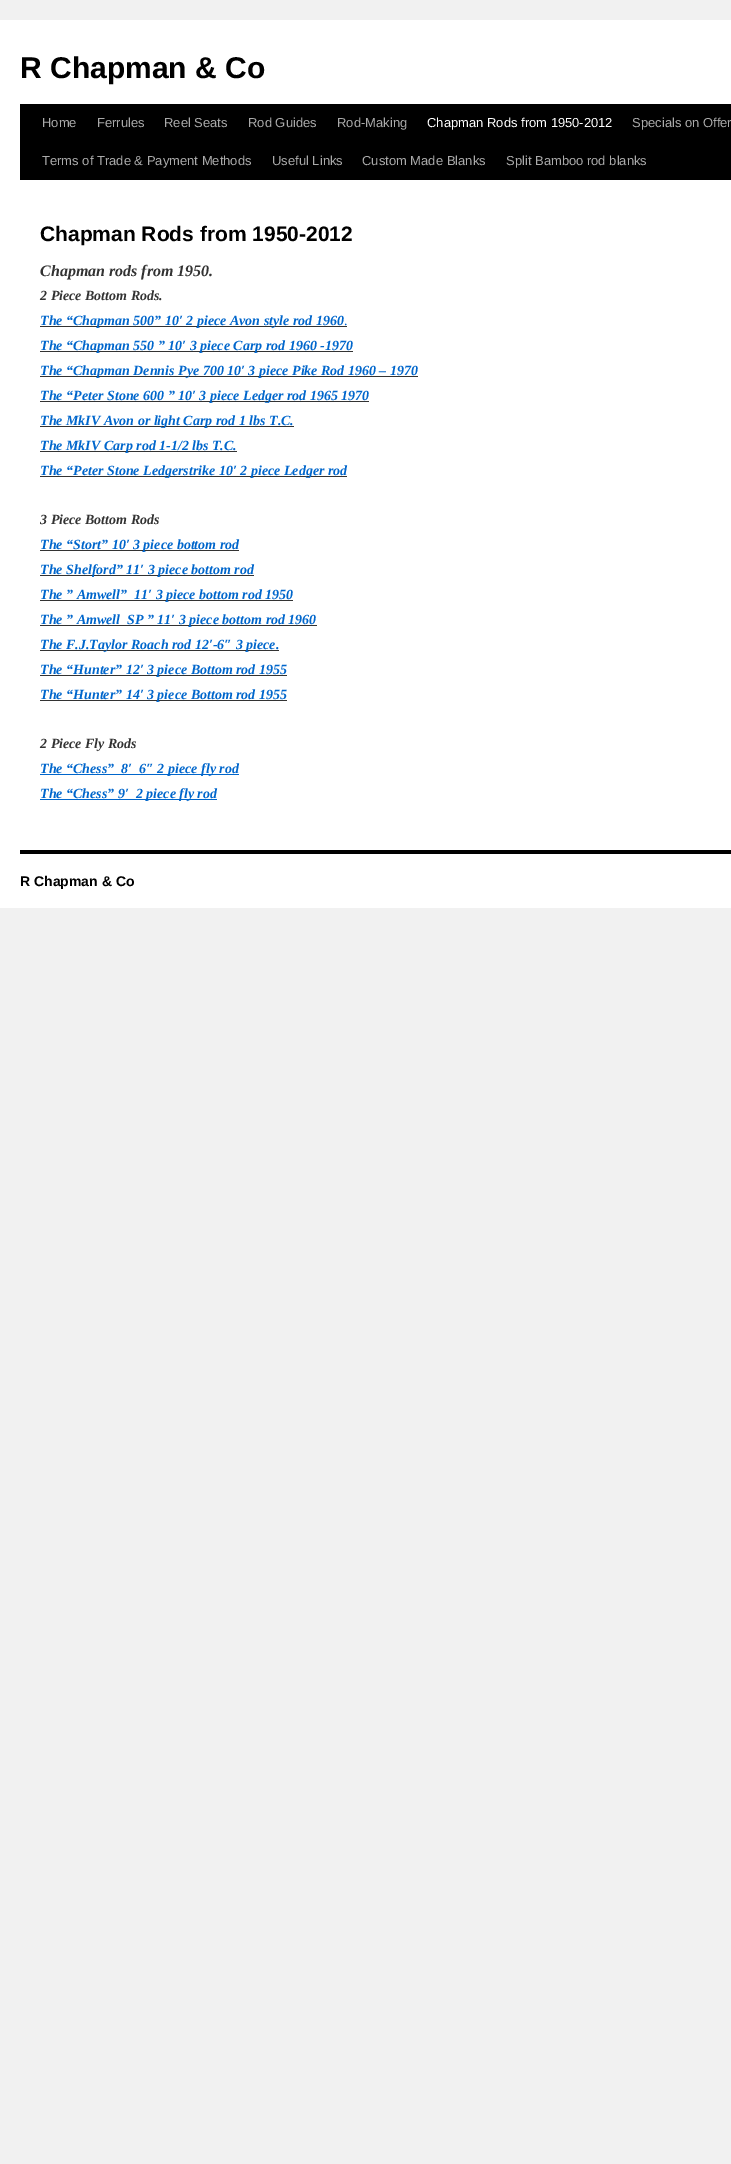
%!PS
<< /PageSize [731 2164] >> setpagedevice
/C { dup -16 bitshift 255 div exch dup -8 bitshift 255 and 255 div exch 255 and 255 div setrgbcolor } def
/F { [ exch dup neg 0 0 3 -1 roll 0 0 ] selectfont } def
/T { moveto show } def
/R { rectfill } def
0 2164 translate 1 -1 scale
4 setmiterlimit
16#F1F1F1 C
0 0 731 2164 R
16#FFFFFF C
0 20 731 888 R
/LiberationSans-Bold 30 F
16#000000 C
(R Chapman & Co) 20 78 T
20 104 711 76 R
/LiberationSans-Regular 13 F
16#AAAAAA C
(Home) 42 127 T
(Ferrules) 97 127 T
(Reel Seats) 164 127 T
(Rod Guides) 248 127 T
(Rod-Making) 337 127 T
16#FFFFFF C
(Chapman Rods from 1950-2012) 427 127 T
16#AAAAAA C
(Specials on Offer) 632 127 T
(Terms of Trade & Payment Methods) 42 165 T
(Useful Links) 272 165 T
(Custom Made Blanks) 362 165 T
(Split Bamboo rod blanks) 506 165 T
/LiberationSans-Bold 21 F
16#000000 C
(Chapman Rods from 1950-2012) 40 241 T
/LiberationSerif-BoldItalic 16 F
16#333333 C
(Chapman rods from 1950.) 40 276 T
/LiberationSerif-BoldItalic 14 F
(2 Piece Bottom Rods.) 40 300 T
40 326 307 1 R
16#0066CC C
(The “Chapman 500” 10′ 2 piece Avon style rod 1960) 40 325 T
/LiberationSerif-Regular 14 F
(.) 344 325 T
16#333333 C
40 351 313 1 R
/LiberationSerif-BoldItalic 14 F
16#0066CC C
(The “Chapman 550 ” 10′ 3 piece Carp rod 1960 -1970) 40 350 T
16#333333 C
40 376 378 1 R
16#0066CC C
(The “Chapman Dennis Pye 700 10′ 3 piece Pike Rod 1960 – 1970) 40 375 T
16#333333 C
40 401 329 1 R
16#0066CC C
(The “Peter Stone 600 ” 10′ 3 piece Ledger rod 1965 1970) 40 400 T
16#333333 C
40 426 254 1 R
16#0066CC C
(The MkIV Avon or light Carp rod 1 lbs T.C.) 40 425 T
16#333333 C
40 451 197 1 R
16#0066CC C
(The MkIV Carp rod 1-1/2 lbs T.C.) 40 450 T
16#333333 C
40 476 307 1 R
16#0066CC C
(The “Peter Stone Ledgerstrike 10′ 2 piece Ledger rod) 40 475 T
16#333333 C
(3 Piece Bottom Rods) 40 524 T
40 550 199 1 R
16#0066CC C
(The “Stort” 10′ 3 piece bottom rod) 40 549 T
16#333333 C
40 575 214 1 R
16#0066CC C
(The Shelford” 11′ 3 piece bottom rod) 40 574 T
16#333333 C
40 600 253 1 R
16#0066CC C
(The ” Amwell”  11′ 3 piece bottom rod 1950) 40 599 T
16#333333 C
40 625 277 1 R
16#0066CC C
(The ” Amwell  SP ” 11′ 3 piece bottom rod 1960) 40 624 T
16#333333 C
40 650 239 1 R
16#0066CC C
(The F.J.Taylor Roach rod 12′-6″ 3 piece.) 40 649 T
16#333333 C
40 675 247 1 R
16#0066CC C
(The “Hunter” 12′ 3 piece Bottom rod 1955) 40 674 T
16#333333 C
40 700 247 1 R
16#0066CC C
(The “Hunter” 14′ 3 piece Bottom rod 1955) 40 699 T
16#333333 C
(2 Piece Fly Rods) 40 748 T
16#0066CC C
40 774 199 1 R
(The “Chess”  8′  6″ 2 piece fly rod) 40 773 T
40 799 177 1 R
(The “Chess” 9′  2 piece fly rod) 40 798 T
16#000000 C
20 850 711 4 R
/LiberationSans-Bold 14 F
(R Chapman & Co) 20 886 T
showpage
